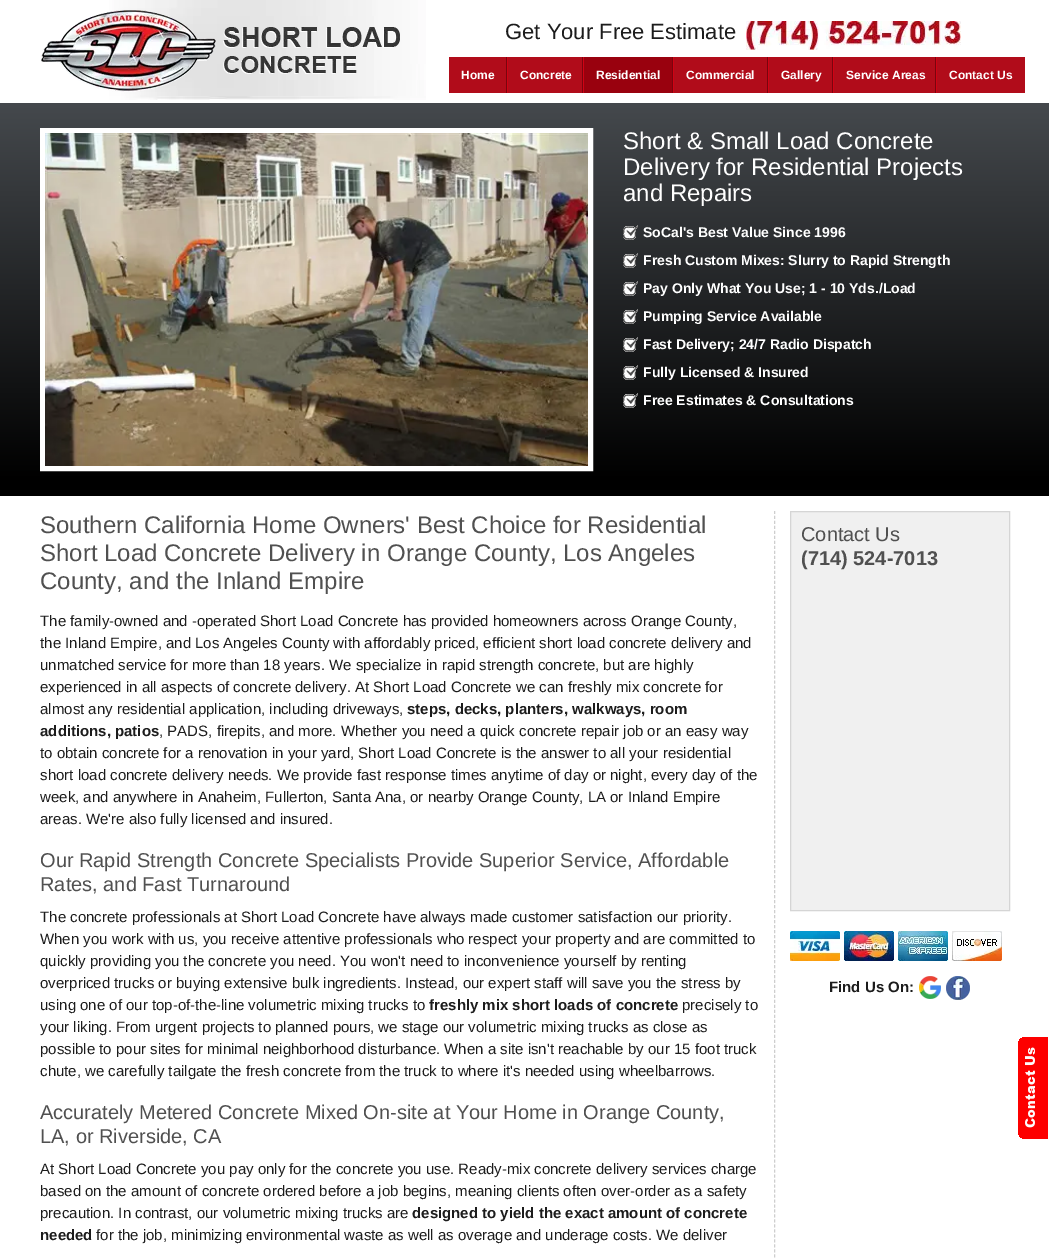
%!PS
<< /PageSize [1049 1258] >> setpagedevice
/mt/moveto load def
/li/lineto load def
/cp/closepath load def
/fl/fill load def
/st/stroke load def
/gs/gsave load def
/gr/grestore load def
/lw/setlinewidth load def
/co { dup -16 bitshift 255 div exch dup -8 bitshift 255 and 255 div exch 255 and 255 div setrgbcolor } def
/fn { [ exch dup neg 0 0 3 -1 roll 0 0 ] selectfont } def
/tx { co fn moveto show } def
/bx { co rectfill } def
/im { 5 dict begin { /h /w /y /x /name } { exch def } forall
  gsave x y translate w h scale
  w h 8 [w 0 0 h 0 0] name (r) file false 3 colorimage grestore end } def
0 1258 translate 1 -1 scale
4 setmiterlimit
0 0 1049 1258 16#FFFFFF bx
(media/1.raw) 109 0 317 100 im
(media/2.raw) 41 10 359 82 im
(media/3.raw) 746 21 215 29 im
449 57 57 36 16#B10C1A bx
506 57 1 36 16#7A040E bx
508 57 74 36 16#B10C1A bx
582 57 1 36 16#7A040E bx
507 57 1 36 16#D10214 bx
584 57 88 36 16#99010E bx
672 57 1 36 16#7A040E bx
583 57 1 36 16#D10214 bx
674 57 93 36 16#B10C1A bx
767 57 1 36 16#7A040E bx
673 57 1 36 16#D10214 bx
769 57 63 36 16#B10C1A bx
832 57 1 36 16#7A040E bx
768 57 1 36 16#D10214 bx
834 57 101 36 16#B10C1A bx
935 57 1 36 16#7A040E bx
833 57 1 36 16#D10214 bx
937 57 88 36 16#B10C1A bx
936 57 1 36 16#D10214 bx
gs 0 103 mt 1049 103 li 1049 481 li 0 481 li cp clip newpath
<< /ShadingType 2 /ColorSpace /DeviceRGB /Coords [525 103 525 481] /Extend [true true] /Function << /FunctionType 2 /Domain [0 1] /C0 [.271 .286 .302] /C1 [0 0 0] /N 1 >> >> shfill gr
16#FFFFFF co
5 lw
42.5 130.5 548 338 rectstroke
(media/4.raw) 45 133 543 333 im
(media/5.raw) 623 225 15 15 im
(media/6.raw) 623 253 15 15 im
(media/7.raw) 623 281 15 15 im
(media/8.raw) 623 309 15 15 im
(media/9.raw) 623 337 15 15 im
(media/10.raw) 623 365 15 15 im
(media/11.raw) 623 393 15 15 im
0 481 1049 15 16#000000 bx
16#CECECE co
1 lw
[3 1.99] 0 setdash
774.5 511 mt 774.5 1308 li st
16#F0F0F0 co
790.5 511.5 mt 1009.5 511.5 li 1009.5 910.5 li 790.5 910.5 li cp gs fl gr
16#D5D5D5 co
[] 0 setdash
st
(media/12.raw) 790 931 50 30 im
(media/13.raw) 844 931 50 30 im
(media/14.raw) 898 931 50 30 im
(media/15.raw) 952 931 50 30 im
(media/16.raw) 919 976 22 23 im
(media/17.raw) 946 976 24 24 im
(media/18.raw) 1018 1037 30 102 im
(Get Your Free Estimate) 505 39 /LiberationSans-Regular 22 16#1C1C1C tx
(Home) 461 79 /LiberationSans-Bold 12 16#FFFFFF tx
(Concrete) 520 79 /LiberationSans-Bold 12 16#FFFFFF tx
(Residential) 596 79 /LiberationSans-Bold 12 16#FFFFFF tx
(Commercial) 686 79 /LiberationSans-Bold 12 16#FFFFFF tx
(Gallery) 781 79 /LiberationSans-Bold 12 16#FFFFFF tx
(Service Areas) 846 79 /LiberationSans-Bold 12 16#FFFFFF tx
(Contact Us) 949 79 /LiberationSans-Bold 12 16#FFFFFF tx
(Short & Small Load Concrete) 623 149 /LiberationSans-Regular 24 16#FFFFFF tx
(Delivery for Residential Projects) 623 175 /LiberationSans-Regular 24 16#FFFFFF tx
(and Repairs) 623 201 /LiberationSans-Regular 24 16#FFFFFF tx
(SoCal's Best Value Since 1996) 643 237 /LiberationSans-Bold 14 16#FFFFFF tx
(Fresh Custom Mixes: Slurry to Rapid Strength) 643 265 /LiberationSans-Bold 14 16#FFFFFF tx
(Pay Only What You Use; 1 - 10 Yds./Load) 643 293 /LiberationSans-Bold 14 16#FFFFFF tx
(Pumping Service Available) 643 321 /LiberationSans-Bold 14 16#FFFFFF tx
(Fast Delivery; 24/7 Radio Dispatch) 643 349 /LiberationSans-Bold 14 16#FFFFFF tx
(Fully Licensed & Insured) 643 377 /LiberationSans-Bold 14 16#FFFFFF tx
(Free Estimates & Consultations) 643 405 /LiberationSans-Bold 14 16#FFFFFF tx
(Southern California Home Owners' Best Choice for Residential) 40 533 /LiberationSans-Regular 24 16#505050 tx
(Short Load Concrete Delivery in Orange County, Los Angeles) 40 561 /LiberationSans-Regular 24 16#505050 tx
(County, and the Inland Empire) 40 589 /LiberationSans-Regular 24 16#505050 tx
(The family-owned and -operated Short Load Concrete has provided homeowners across Orange County,) 40 626 /LiberationSans-Regular 15 16#1C1C1C tx
(the Inland Empire, and Los Angeles County with affordably priced, efficient short load concrete delivery and) 40 648 /LiberationSans-Regular 15 16#1C1C1C tx
(unmatched service for more than 18 years. We specialize in rapid strength concrete, but are highly) 40 670 /LiberationSans-Regular 15 16#1C1C1C tx
(experienced in all aspects of concrete delivery. At Short Load Concrete we can freshly mix concrete for) 40 692 /LiberationSans-Regular 15 16#1C1C1C tx
(almost any residential application, including driveways,) 40 714 /LiberationSans-Regular 15 16#1C1C1C tx
(steps, decks, planters, walkways, room) 407 714 /LiberationSans-Bold 15 16#1C1C1C tx
(additions, patios) 40 736 /LiberationSans-Bold 15 16#1C1C1C tx
(, PADS, firepits, and more. Whether you need a quick concrete repair job or an easy way) 159 736 /LiberationSans-Regular 15 16#1C1C1C tx
(to obtain concrete for a renovation in your yard, Short Load Concrete is the answer to all your residential) 40 758 /LiberationSans-Regular 15 16#1C1C1C tx
(short load concrete delivery needs. We provide fast response times anytime of day or night, every day of the) 40 780 /LiberationSans-Regular 15 16#1C1C1C tx
(week, and anywhere in Anaheim, Fullerton, Santa Ana, or nearby Orange County, LA or Inland Empire) 40 802 /LiberationSans-Regular 15 16#1C1C1C tx
(areas. We're also fully licensed and insured.) 40 824 /LiberationSans-Regular 15 16#1C1C1C tx
(Our Rapid Strength Concrete Specialists Provide Superior Service, Affordable) 40 867 /LiberationSans-Regular 20 16#505050 tx
(Rates, and Fast Turnaround) 40 891 /LiberationSans-Regular 20 16#505050 tx
(The concrete professionals at Short Load Concrete have always made customer satisfaction our priority.) 40 922 /LiberationSans-Regular 15 16#1C1C1C tx
(When you work with us, you receive attentive professionals who respect your property and are committed to) 40 944 /LiberationSans-Regular 15 16#1C1C1C tx
(quickly providing you the concrete you need. You won't need to inconvenience yourself by renting) 40 966 /LiberationSans-Regular 15 16#1C1C1C tx
(overpriced trucks or buying extensive bulk ingredients. Instead, our expert staff will save you the stress by) 40 988 /LiberationSans-Regular 15 16#1C1C1C tx
(using one of our top-of-the-line volumetric mixing trucks to) 40 1010 /LiberationSans-Regular 15 16#1C1C1C tx
(freshly mix short loads of concrete) 429 1010 /LiberationSans-Bold 15 16#1C1C1C tx
(precisely to) 682 1010 /LiberationSans-Regular 15 16#1C1C1C tx
(your liking. From urgent projects to planned pours, we stage our volumetric mixing trucks as close as) 40 1032 /LiberationSans-Regular 15 16#1C1C1C tx
(possible to pour sites for minimal neighborhood disturbance. When a site isn't reachable by our 15 foot truck) 40 1054 /LiberationSans-Regular 15 16#1C1C1C tx
(chute, we carefully tailgate the fresh concrete from the truck to where it's needed using wheelbarrows.) 40 1076 /LiberationSans-Regular 15 16#1C1C1C tx
(Accurately Metered Concrete Mixed On-site at Your Home in Orange County,) 40 1119 /LiberationSans-Regular 20 16#505050 tx
(LA, or Riverside, CA) 40 1143 /LiberationSans-Regular 20 16#505050 tx
(At Short Load Concrete you pay only for the concrete you use. Ready-mix concrete delivery services charge) 40 1174 /LiberationSans-Regular 15 16#1C1C1C tx
(based on the amount of concrete ordered before a job begins, meaning clients often over-order as a safety) 40 1196 /LiberationSans-Regular 15 16#1C1C1C tx
(precaution. In contrast, our volumetric mixing trucks are) 40 1218 /LiberationSans-Regular 15 16#1C1C1C tx
(designed to yield the exact amount of concrete) 412 1218 /LiberationSans-Bold 15 16#1C1C1C tx
(needed) 40 1240 /LiberationSans-Bold 15 16#1C1C1C tx
(for the job, minimizing environmental waste as well as overage and underage costs. We deliver) 96 1240 /LiberationSans-Regular 15 16#1C1C1C tx
(Contact Us) 801 541 /LiberationSans-Regular 20 16#505050 tx
(\(714\) 524-7013) 801 565 /LiberationSans-Bold 20 16#505050 tx
(Find Us On:) 829 992 /LiberationSans-Bold 15 16#1C1C1C tx
showpage
